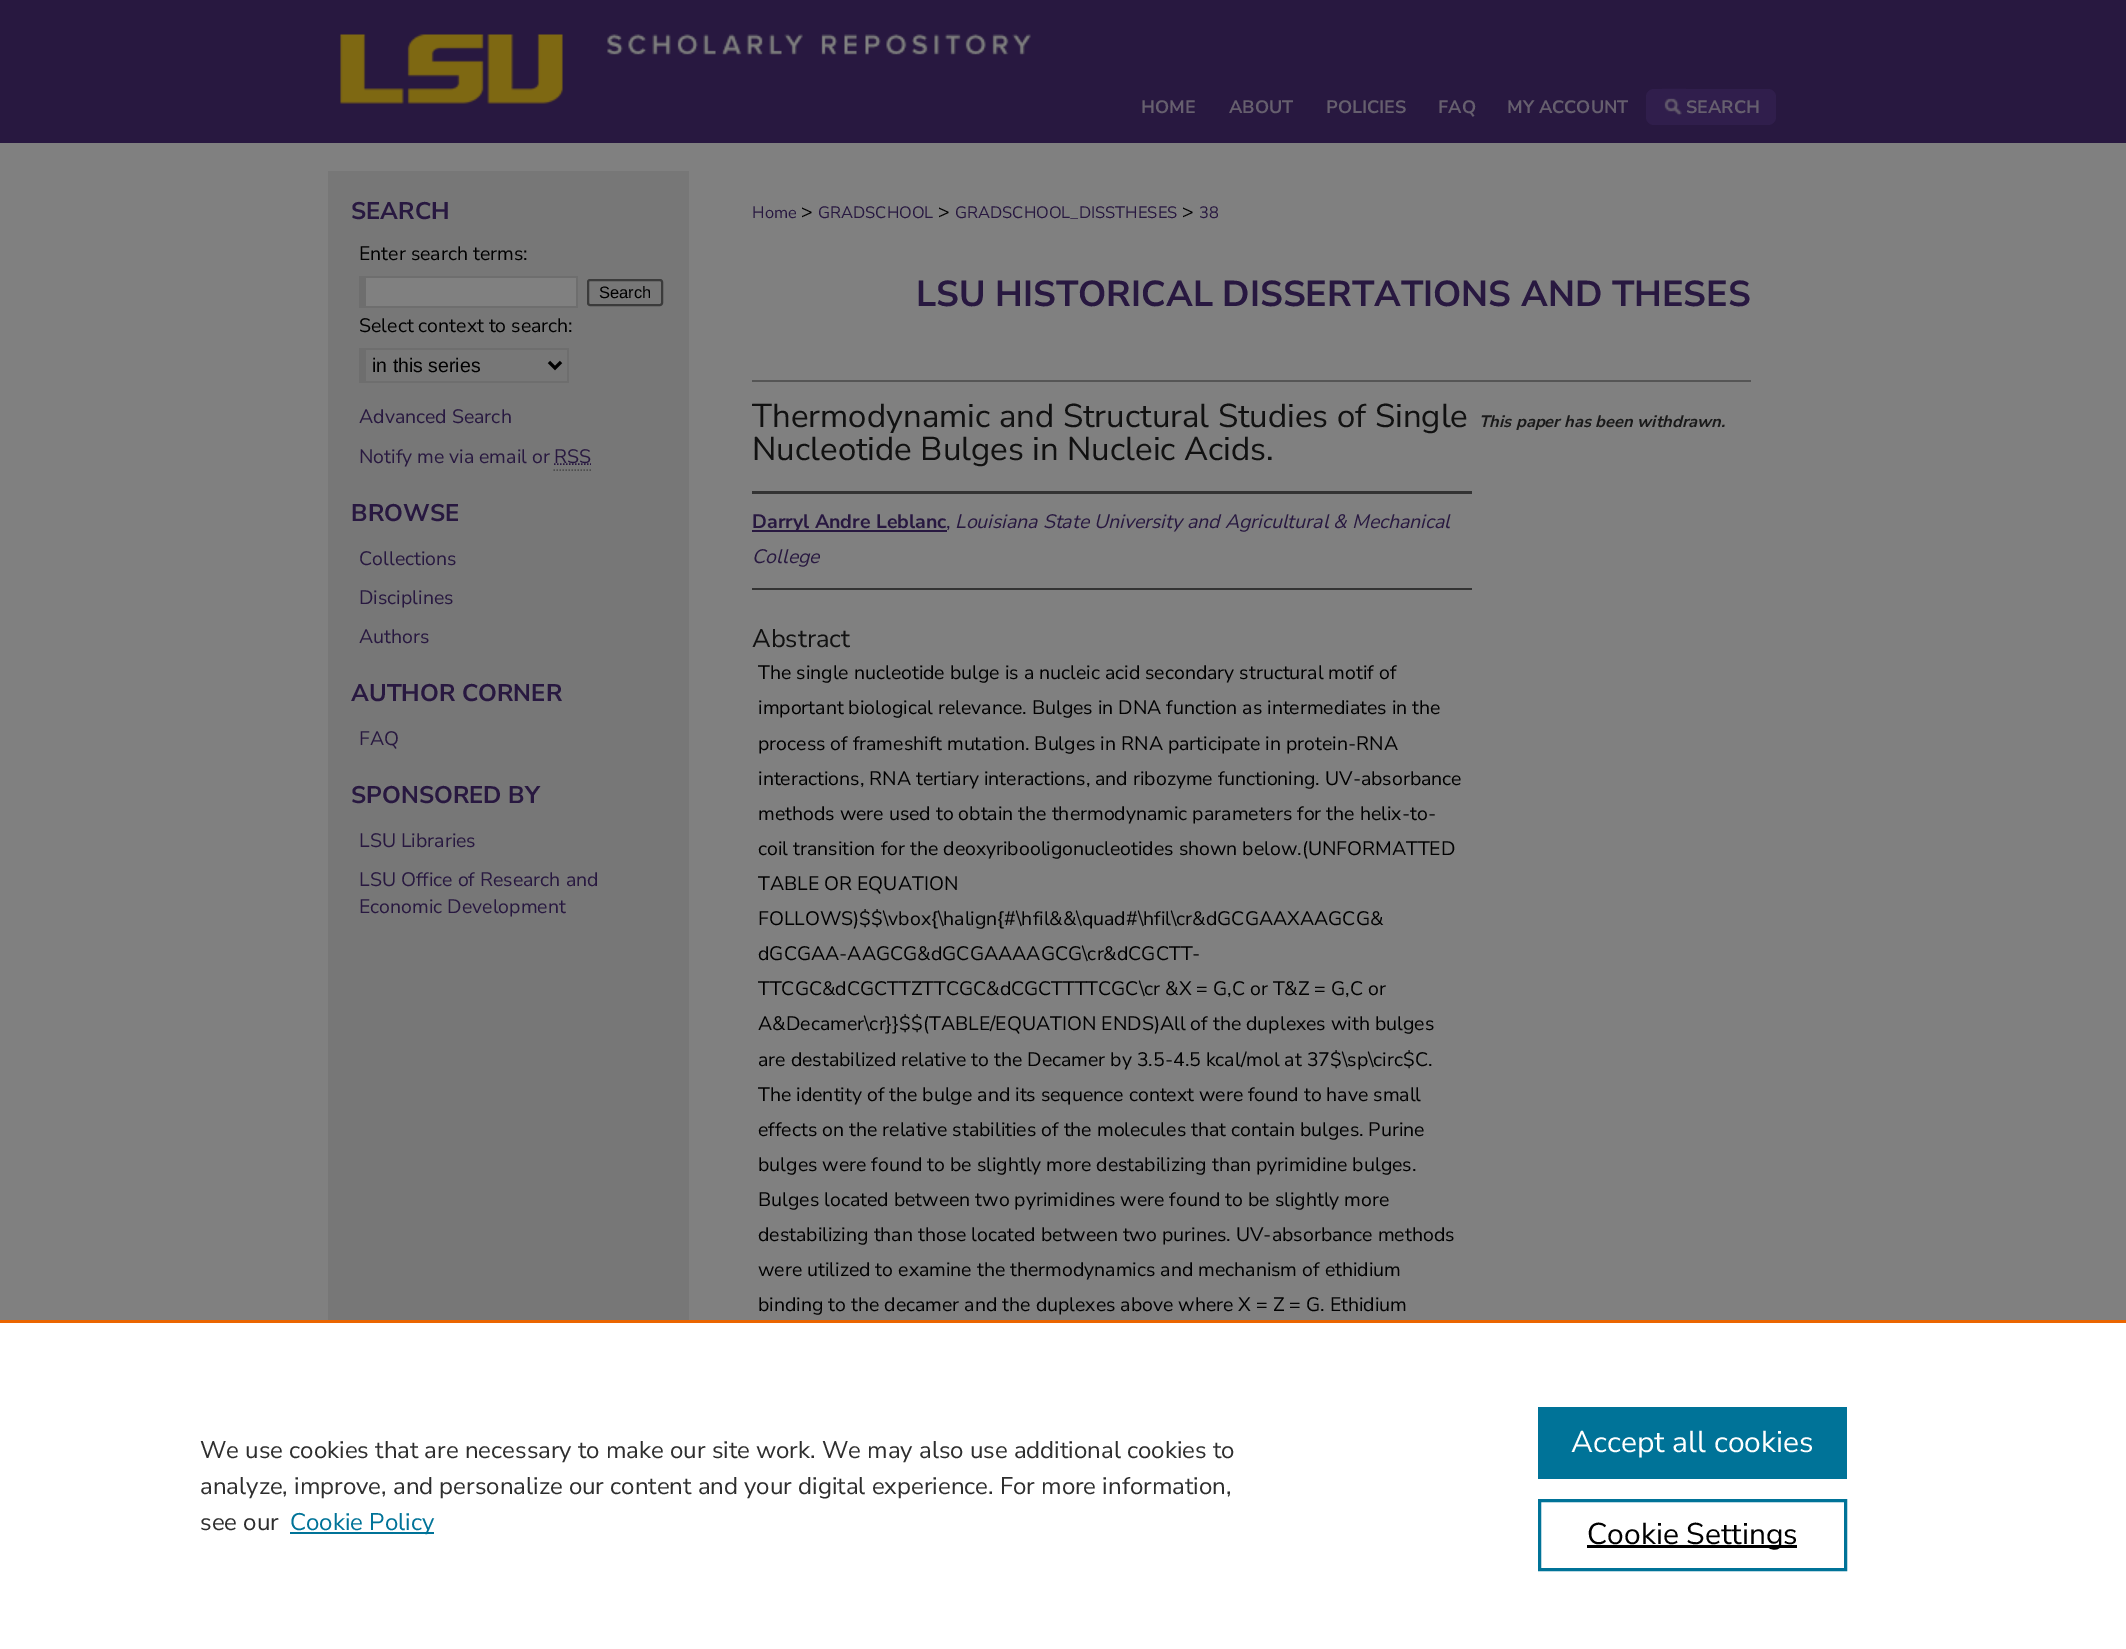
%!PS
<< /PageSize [2126 1649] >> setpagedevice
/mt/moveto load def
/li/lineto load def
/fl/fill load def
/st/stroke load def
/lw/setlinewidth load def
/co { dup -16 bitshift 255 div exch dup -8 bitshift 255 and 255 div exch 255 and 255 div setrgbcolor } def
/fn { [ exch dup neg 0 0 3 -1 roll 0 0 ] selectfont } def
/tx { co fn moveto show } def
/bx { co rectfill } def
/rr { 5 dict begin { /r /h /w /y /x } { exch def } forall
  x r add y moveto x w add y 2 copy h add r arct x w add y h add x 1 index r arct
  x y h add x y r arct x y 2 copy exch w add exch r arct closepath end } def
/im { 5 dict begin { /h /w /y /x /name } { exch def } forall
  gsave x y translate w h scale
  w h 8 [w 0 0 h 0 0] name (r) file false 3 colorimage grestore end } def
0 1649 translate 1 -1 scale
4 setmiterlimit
0 0 2126 1649 16#808080 bx
0 0 2126 143 16#281840 bx
(media/1.raw) 340 34 691 70 im
16#301E4C co
1646 89 130 36 8 rr fl
(media/2.raw) 1662 88 24 28 im
328 171 361 1149 16#777777 bx
366 278 210 28 16#808080 bx
359 276 219 2 16#6E6E6E bx
576 276 2 32 16#6E6E6E bx
359 306 219 2 16#6E6E6E bx
359 276 7 32 16#6E6E6E bx
16#3B3B3B co
2 lw
588 280 74 25 2 rr st
359 348 210 2 16#6E6E6E bx
567 348 2 35 16#6E6E6E bx
359 381 210 2 16#6E6E6E bx
359 348 7 35 16#6E6E6E bx
16#000000 co
3 lw
549 362 mt 555 368 li 561 362 li st
16#4D4D4D co
1.5 lw
[1.5 1.5] 0 setdash
553.5 470 mt 591 470 li st
16#281840 co
554 464 mt 591 464 li st
752 380 999 2 16#555555 bx
752 491 720 3 16#333333 bx
752 588 720 2 16#333333 bx
752 530 195 2 16#281840 bx
0 1323 2126 326 16#FFFFFF bx
0 1320 2126 3 16#EB6500 bx
290 1532 144 2 16#007398 bx
1538 1407 309 72 16#007398 bx
3 lw
[] 0 setdash
1539.5 1500.5 306 69 rectstroke
1587 1545 210 3 16#000000 bx
(HOME) 1141 113 /NunitoSans-Bold 18 16#665F6E tx
(ABOUT) 1229 113 /NunitoSans-Bold 18 16#665F6E tx
(POLICIES) 1326 113 /NunitoSans-Bold 18 16#665F6E tx
(FAQ) 1438 113 /NunitoSans-Bold 18 16#665F6E tx
(MY ACCOUNT) 1507 113 /NunitoSans-Bold 18 16#665F6E tx
(SEARCH) 1686 113 /NunitoSans-Bold 18 16#665F6E tx
(SEARCH) 351 219 /NunitoSans-Bold 24 16#281840 tx
(Enter search terms:) 359 260 /NunitoSans-Regular 19.5 16#000000 tx
(Search) 599 298 /LiberationSans-Regular 16.5 16#000000 tx
(Select context to search:) 359 332 /NunitoSans-Regular 19.5 16#000000 tx
(in this series) 372 372 /LiberationSans-Regular 19.5 16#000000 tx
(Advanced Search) 359 423 /NunitoSans-Regular 19.5 16#281840 tx
(Notify me via email or) 359 463 /NunitoSans-Regular 19.5 16#281840 tx
(RSS) 554 463 /NunitoSans-Regular 19.5 16#281840 tx
(BROWSE) 351 521 /NunitoSans-Bold 24 16#281840 tx
(Collections) 359 565 /NunitoSans-Regular 19.5 16#281840 tx
(Disciplines) 359 604 /NunitoSans-Regular 19.5 16#281840 tx
(Authors) 359 643 /NunitoSans-Regular 19.5 16#281840 tx
(AUTHOR CORNER) 351 701 /NunitoSans-Bold 24 16#281840 tx
(FAQ) 359 745 /NunitoSans-Regular 19.5 16#281840 tx
(SPONSORED BY) 351 803 /NunitoSans-Bold 24 16#281840 tx
(LSU Libraries) 359 847 /NunitoSans-Regular 19.5 16#281840 tx
(LSU Office of Research and) 359 886 /NunitoSans-Regular 19.5 16#281840 tx
(Economic Development) 359 913 /NunitoSans-Regular 19.5 16#281840 tx
(Home) 752 218 /NunitoSans-Regular 16.5 16#281840 tx
(>) 801 218 /NunitoSans-Regular 19.5 16#000000 tx
(GRADSCHOOL) 818 218 /NunitoSans-Regular 16.5 16#281840 tx
(>) 938 218 /NunitoSans-Regular 19.5 16#000000 tx
(GRADSCHOOL_DISSTHESES) 955 218 /NunitoSans-Regular 16.5 16#281840 tx
(>) 1182 218 /NunitoSans-Regular 19.5 16#000000 tx
(38) 1199 218 /NunitoSans-Regular 16.5 16#281840 tx
(LSU HISTORICAL DISSERTATIONS AND THESES) 916 306 /NunitoSans-Bold 36 16#281840 tx
(Thermodynamic and Structural Studies of Single) 752 427 /NunitoSans-Regular 33 16#111111 tx
(Nucleotide Bulges in Nucleic Acids.) 752 460 /NunitoSans-Regular 33 16#111111 tx
(Darryl Andre Leblanc) 752 528 /NunitoSans-Bold 19.5 16#281840 tx
(,) 946 528 /NunitoSans-Regular 19.5 16#281840 tx
(Louisiana State University and Agricultural & Mechanical) 955 528 /NunitoSans-Italic 19.5 16#281840 tx
(College) 752 563 /NunitoSans-Italic 19.5 16#281840 tx
(Abstract) 752 647 /NunitoSans-Regular 25.5 16#111111 tx
(The single nucleotide bulge is a nucleic acid secondary structural motif of) 758 679 /NunitoSans-Regular 19.5 16#000000 tx
(important biological relevance. Bulges in DNA function as intermediates in the) 758 714 /NunitoSans-Regular 19.5 16#000000 tx
(process of frameshift mutation. Bulges in RNA participate in protein-RNA) 758 750 /NunitoSans-Regular 19.5 16#000000 tx
(interactions, RNA tertiary interactions, and ribozyme functioning. UV-absorbance) 758 785 /NunitoSans-Regular 19.5 16#000000 tx
(methods were used to obtain the thermodynamic parameters for the helix-to-) 758 820 /NunitoSans-Regular 19.5 16#000000 tx
(coil transition for the deoxyribooligonucleotides shown below.\(UNFORMATTED) 758 855 /NunitoSans-Regular 19.5 16#000000 tx
(TABLE OR EQUATION) 758 890 /NunitoSans-Regular 19.5 16#000000 tx
(FOLLOWS\)$$\\vbox{\\halign{#\\hfil&&\\quad#\\hfil\\cr&dGCGAAXAAGCG&) 758 925 /NunitoSans-Regular 19.5 16#000000 tx
(dGCGAA-AAGCG&dGCGAAAAGCG\\cr&dCGCTT-) 758 960 /NunitoSans-Regular 19.5 16#000000 tx
(TTCGC&dCGCTTZTTCGC&dCGCTTTTCGC\\cr &X = G,C or T&Z = G,C or) 758 995 /NunitoSans-Regular 19.5 16#000000 tx
(A&Decamer\\cr}}$$\(TABLE/EQUATION ENDS\)All of the duplexes with bulges) 758 1030 /NunitoSans-Regular 19.5 16#000000 tx
(are destabilized relative to the Decamer by 3.5-4.5 kcal/mol at 37$\\sp\\circ$C.) 758 1066 /NunitoSans-Regular 19.5 16#000000 tx
(The identity of the bulge and its sequence context were found to have small) 758 1101 /NunitoSans-Regular 19.5 16#000000 tx
(effects on the relative stabilities of the molecules that contain bulges. Purine) 758 1136 /NunitoSans-Regular 19.5 16#000000 tx
(bulges were found to be slightly more destabilizing than pyrimidine bulges.) 758 1171 /NunitoSans-Regular 19.5 16#000000 tx
(Bulges located between two pyrimidines were found to be slightly more) 758 1206 /NunitoSans-Regular 19.5 16#000000 tx
(destabilizing than those located between two purines. UV-absorbance methods) 758 1241 /NunitoSans-Regular 19.5 16#000000 tx
(were utilized to examine the thermodynamics and mechanism of ethidium) 758 1276 /NunitoSans-Regular 19.5 16#000000 tx
(binding to the decamer and the duplexes above where X = Z = G. Ethidium) 758 1311 /NunitoSans-Regular 19.5 16#000000 tx
(This paper has been withdrawn.) 1479 427 /NunitoSans-BoldItalic 16.5 16#1A1A1A tx
(We use cookies that are necessary to make our site work. We may also use additional cookies to) 200 1458 /NunitoSans-Regular 24 16#2E2E2E tx
(analyze, improve, and personalize our content and your digital experience. For more information,) 200 1494 /NunitoSans-Regular 24 16#2E2E2E tx
(see our) 200 1530 /NunitoSans-Regular 24 16#2E2E2E tx
(Cookie Policy) 290 1530 /NunitoSans-Regular 24 16#007398 tx
(Accept all cookies) 1571 1452 /NunitoSans-Regular 30 16#FFFFFF tx
(Cookie Settings) 1587 1544 /NunitoSans-Regular 30 16#000000 tx
showpage
